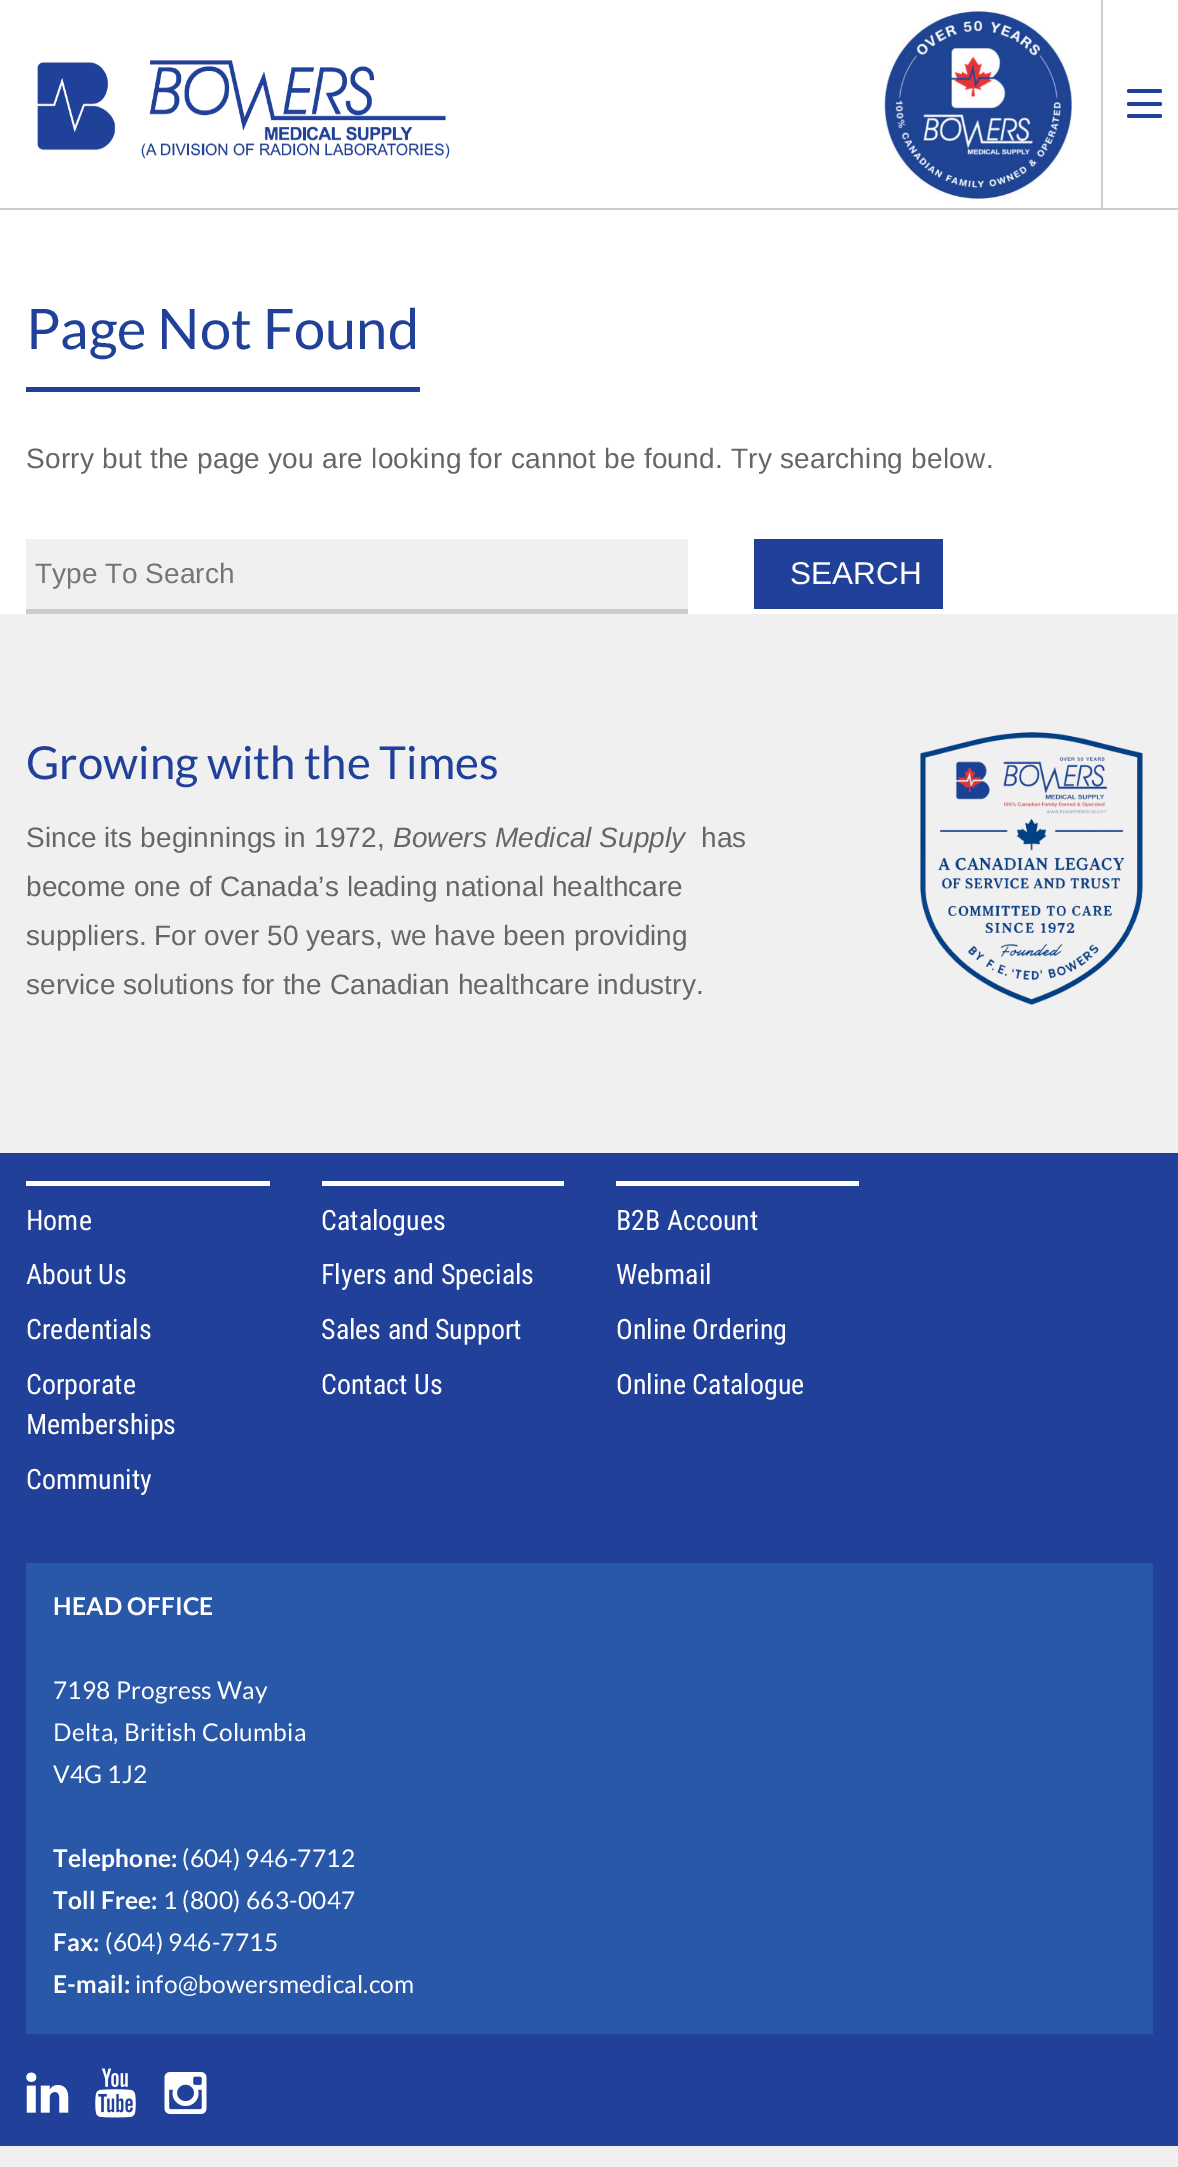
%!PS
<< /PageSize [1178 2167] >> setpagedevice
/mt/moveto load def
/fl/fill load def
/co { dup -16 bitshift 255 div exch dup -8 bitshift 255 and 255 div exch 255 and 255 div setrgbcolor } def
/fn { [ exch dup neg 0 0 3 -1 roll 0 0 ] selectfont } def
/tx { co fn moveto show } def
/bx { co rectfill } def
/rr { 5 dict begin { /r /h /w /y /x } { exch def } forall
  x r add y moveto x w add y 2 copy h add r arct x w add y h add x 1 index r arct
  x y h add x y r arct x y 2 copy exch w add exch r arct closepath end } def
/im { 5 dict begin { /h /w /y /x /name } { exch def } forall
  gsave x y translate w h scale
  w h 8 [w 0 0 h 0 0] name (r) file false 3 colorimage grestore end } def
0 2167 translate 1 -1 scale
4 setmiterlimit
0 0 1178 2167 16#FFFFFF bx
0 208 1178 2 16#CCCCCC bx
(media/1.raw) 37 60 413 99 im
(media/2.raw) 882 9 190 190 im
1101 0 2 210 16#CCCCCC bx
16#204099 co
1127 89 35 4 2 rr fl
1127 102 35 4 2 rr fl
1127 114 35 4 2 rr fl
26 387 394 5 16#204099 bx
26 539 662 70 16#F0F0F0 bx
26 609 662 5 16#CCCCCC bx
754 539 189 70 16#204099 bx
0 614 1178 1553 16#F0F0F0 bx
(media/3.raw) 920 732 223 273 im
0 1153 1178 993 16#204099 bx
26 1181 244 5 16#FFFFFF bx
322 1181 242 5 16#FFFFFF bx
616 1181 243 5 16#FFFFFF bx
26 1563 1127 471 16#2958A9 bx
(media/4.raw) 26 2072 43 41 im
(media/5.raw) 95 2068 41 50 im
(media/6.raw) 164 2072 43 42 im
(Page Not Found) 26 349 /Lato-Regular 56 16#204099 tx
/LiberationSans-Regular 28 fn
16#666666 co
26 468 mt .22 0 (Sorry but the page you are looking for cannot be found. Try searching below.) ashow
(Type To Search) 35 583 /LiberationSans-Regular 28 16#757575 tx
(SEARCH) 790 584 /LiberationSans-Regular 31.5 16#FFFFFF tx
(Growing with the Times) 26 779 /Lato-Regular 45.5 16#204099 tx
/LiberationSans-Regular 28 fn
16#666666 co
26 847 mt .07 0 (Since its beginnings in 1972,) ashow
/LiberationSans-Italic 28 fn
393 847 mt .07 0 (Bowers Medical Supply) ashow
/LiberationSans-Regular 28 fn
701 847 mt .07 0 (has) ashow
26 896 mt .07 0 (become one of Canada’s leading national healthcare) ashow
26 945 mt .07 0 (suppliers. For over 50 years, we have been providing) ashow
26 994 mt .07 0 (service solutions for the Canadian healthcare industry.) ashow
(Home) 26 1230 /RobotoCondensed-Regular 28 16#FFFFFF tx
(About Us) 26 1284 /RobotoCondensed-Regular 28 16#FFFFFF tx
(Credentials) 26 1339 /RobotoCondensed-Regular 28 16#FFFFFF tx
(Corporate) 26 1394 /RobotoCondensed-Regular 28 16#FFFFFF tx
(Memberships) 26 1434 /RobotoCondensed-Regular 28 16#FFFFFF tx
(Community) 26 1489 /RobotoCondensed-Regular 28 16#FFFFFF tx
(Catalogues) 321 1230 /RobotoCondensed-Regular 28 16#FFFFFF tx
(Flyers and Specials) 321 1284 /RobotoCondensed-Regular 28 16#FFFFFF tx
(Sales and Support) 321 1339 /RobotoCondensed-Regular 28 16#FFFFFF tx
(Contact Us) 321 1394 /RobotoCondensed-Regular 28 16#FFFFFF tx
(B2B Account) 616 1230 /RobotoCondensed-Regular 28 16#FFFFFF tx
(Webmail) 616 1284 /RobotoCondensed-Regular 28 16#FFFFFF tx
(Online Ordering) 616 1339 /RobotoCondensed-Regular 28 16#FFFFFF tx
(Online Catalogue) 616 1394 /RobotoCondensed-Regular 28 16#FFFFFF tx
/Lato-Bold 24.5 fn
53 1615 mt .22 0 (HEAD OFFICE) ashow
/Lato-Regular 24.5 fn
53 1699 mt .22 0 (7198 Progress Way) ashow
53 1741 mt .22 0 (Delta, British Columbia) ashow
53 1783 mt .22 0 (V4G 1J2) ashow
/Lato-Bold 24.5 fn
53 1867 mt .22 0 (Telephone:) ashow
/Lato-Regular 24.5 fn
182 1867 mt .22 0 (\(604\) 946-7712) ashow
/Lato-Bold 24.5 fn
53 1909 mt .22 0 (Toll Free:) ashow
/Lato-Regular 24.5 fn
163 1909 mt .22 0 (1 \(800\) 663-0047) ashow
/Lato-Bold 24.5 fn
53 1951 mt .22 0 (Fax:) ashow
/Lato-Regular 24.5 fn
105 1951 mt .22 0 (\(604\) 946-7715) ashow
/Lato-Bold 24.5 fn
53 1993 mt .22 0 (E-mail:) ashow
/Lato-Regular 24.5 fn
135 1993 mt .22 0 (info@bowersmedical.com) ashow
showpage
